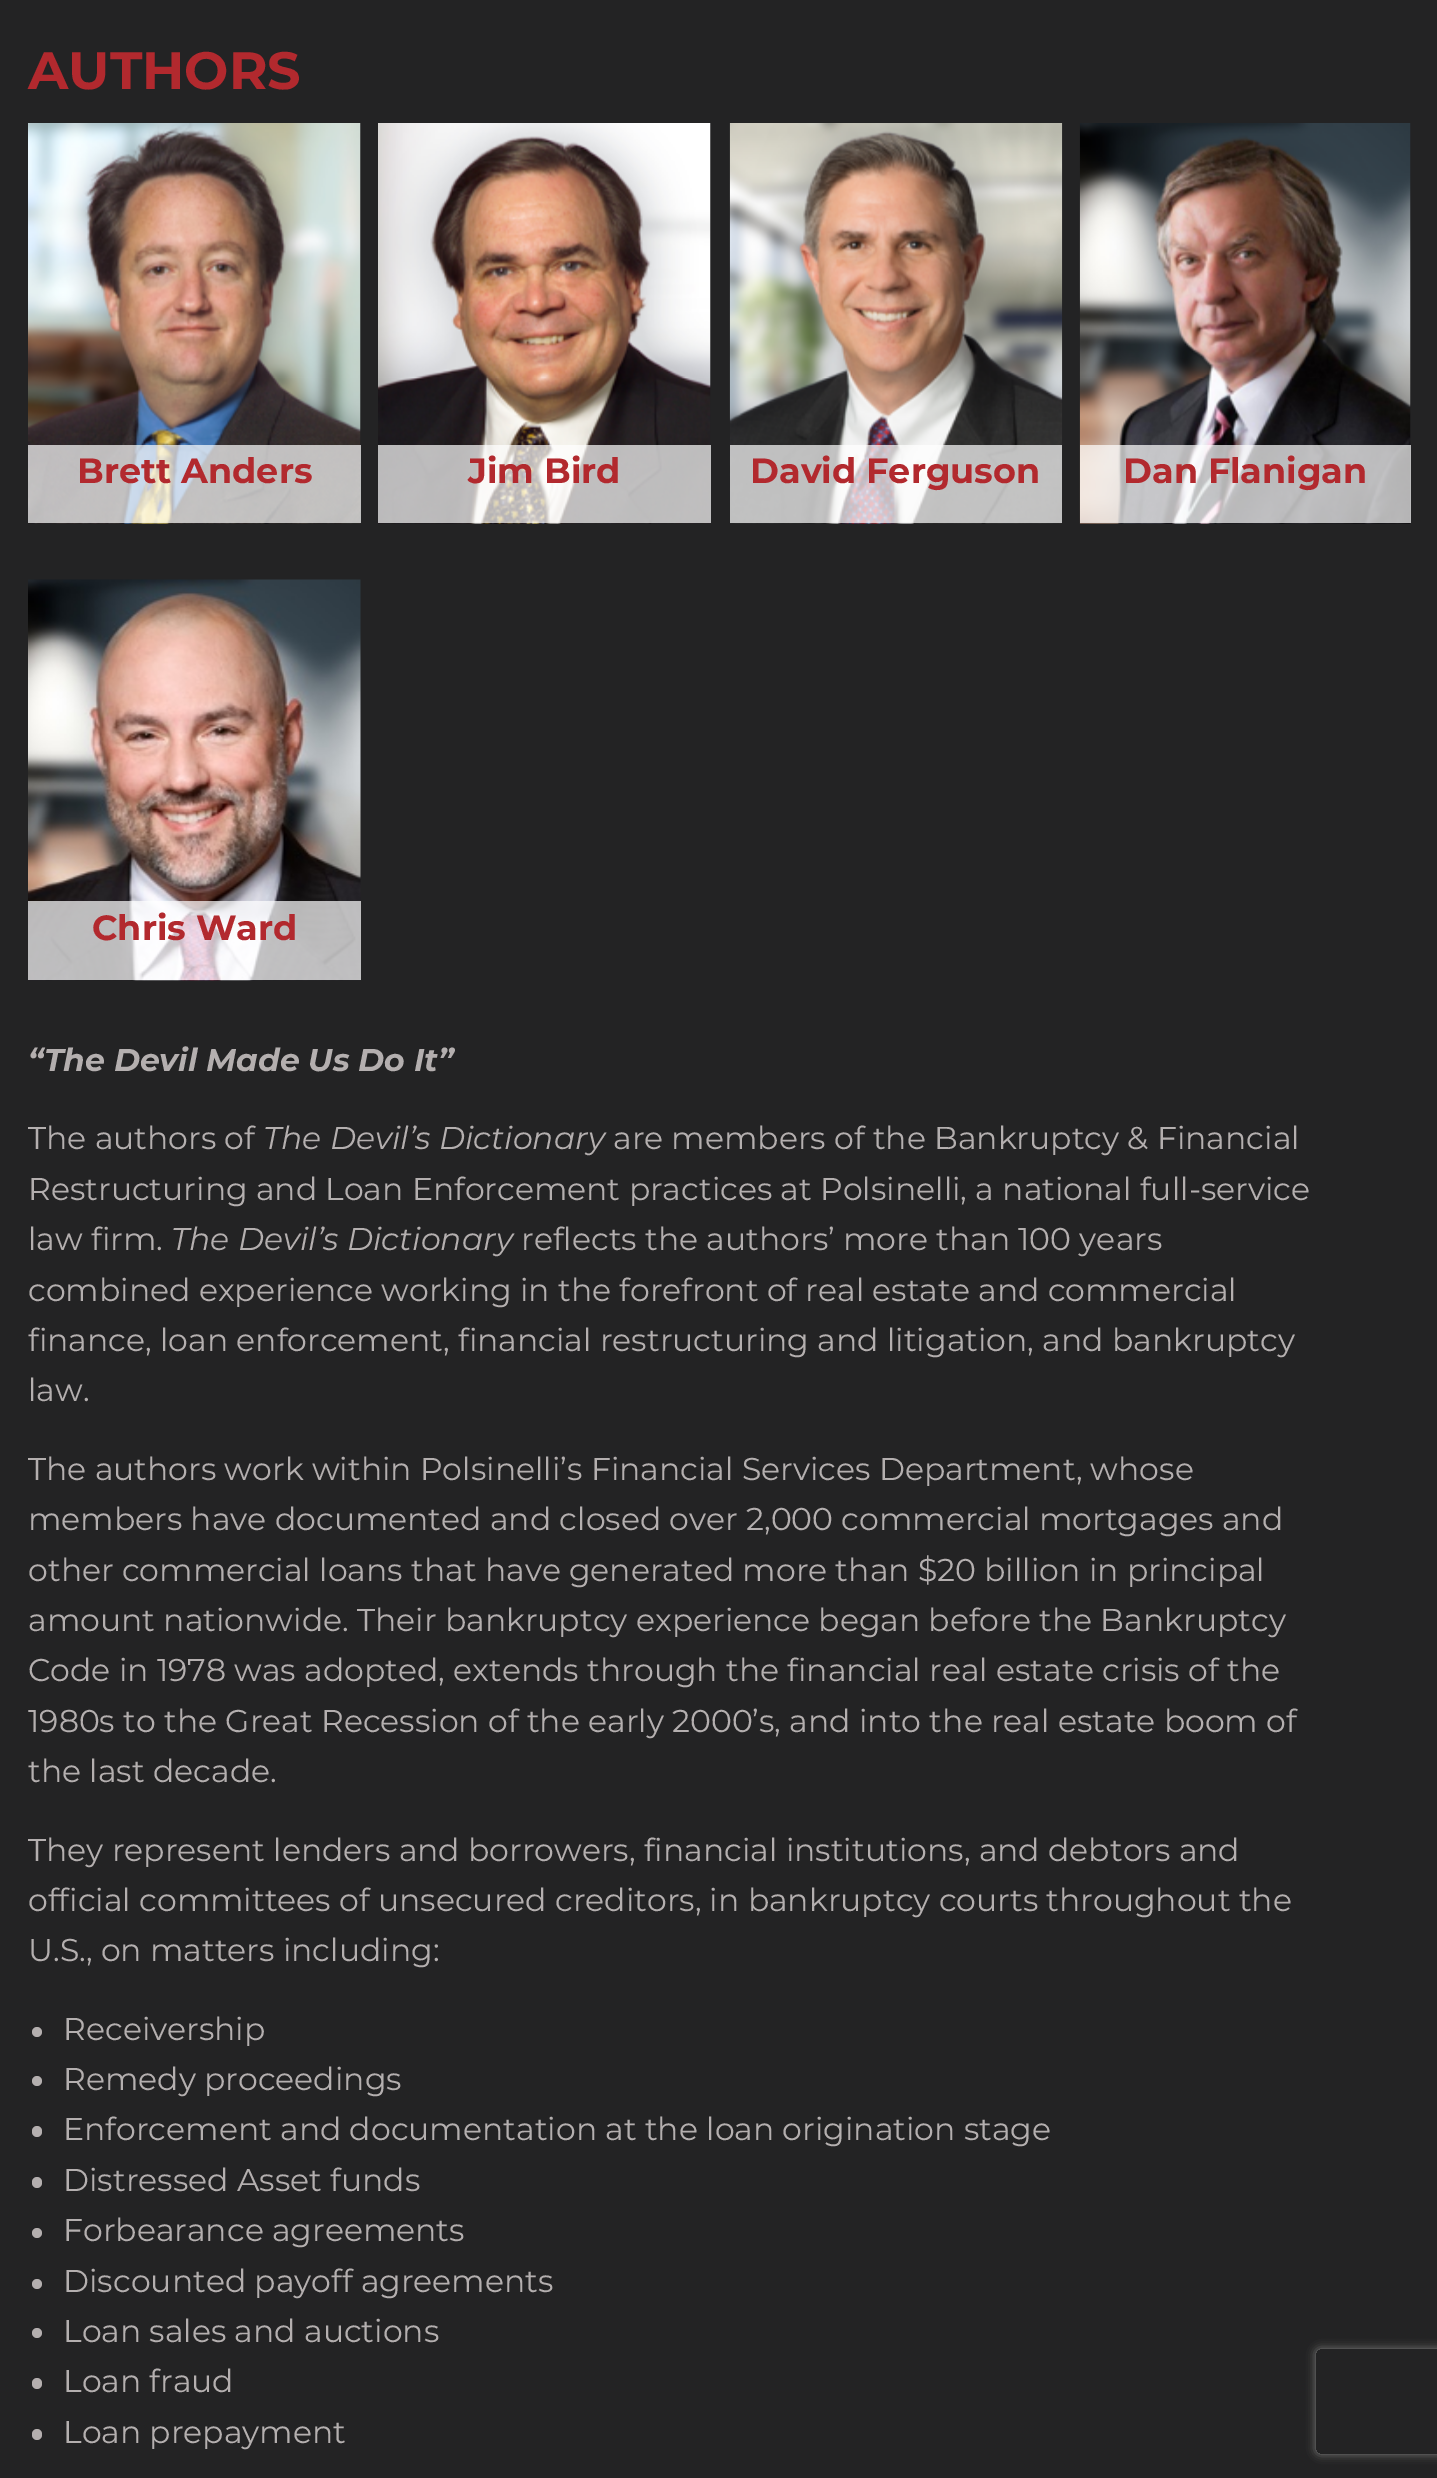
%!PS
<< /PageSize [1437 2478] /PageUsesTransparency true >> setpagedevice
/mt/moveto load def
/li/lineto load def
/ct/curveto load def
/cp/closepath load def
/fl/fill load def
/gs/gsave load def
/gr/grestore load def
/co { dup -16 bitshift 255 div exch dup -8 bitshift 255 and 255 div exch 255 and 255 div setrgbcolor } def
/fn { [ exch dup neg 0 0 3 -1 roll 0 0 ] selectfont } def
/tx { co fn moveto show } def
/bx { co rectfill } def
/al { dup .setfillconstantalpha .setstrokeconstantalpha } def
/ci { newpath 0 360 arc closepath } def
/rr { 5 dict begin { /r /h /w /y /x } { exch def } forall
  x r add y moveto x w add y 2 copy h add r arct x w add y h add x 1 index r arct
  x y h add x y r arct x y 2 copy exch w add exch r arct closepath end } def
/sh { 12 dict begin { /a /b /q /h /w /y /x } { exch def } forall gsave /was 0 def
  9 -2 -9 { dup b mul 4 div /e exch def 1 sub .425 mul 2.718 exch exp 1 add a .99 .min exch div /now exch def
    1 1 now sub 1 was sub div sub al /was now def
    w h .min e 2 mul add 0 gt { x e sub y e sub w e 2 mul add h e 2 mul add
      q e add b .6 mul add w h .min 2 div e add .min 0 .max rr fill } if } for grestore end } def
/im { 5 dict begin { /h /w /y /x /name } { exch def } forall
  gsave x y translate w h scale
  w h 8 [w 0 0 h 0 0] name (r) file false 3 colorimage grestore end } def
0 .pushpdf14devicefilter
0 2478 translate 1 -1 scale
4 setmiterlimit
0 0 1437 2478 16#232324 bx
(media/1.raw) 28 123 333 401 im
0.7 al
28 445 333 78 16#FFFFFF bx
1 al
(media/2.raw) 378 123 333 401 im
0.7 al
378 445 333 78 16#FFFFFF bx
1 al
(media/3.raw) 729 123 334 401 im
0.7 al
730 445 332 78 16#FFFFFF bx
1 al
(media/4.raw) 1079 123 332 401 im
0.7 al
1080 445 331 78 16#FFFFFF bx
1 al
(media/5.raw) 28 579 333 402 im
0.7 al
28 901 333 79 16#FFFFFF bx
1 al
16#B4AFAF co
37 2032 5 ci fl
37 2081 5 ci fl
32 2126 10 11 5 rr fl
32 2177 10 11 5 rr fl
37 2233 5 ci fl
37 2284 5 ci fl
37 2333 5 ci fl
32 2378 10 11 5 rr fl
32 2429 10 11 5 rr fl
gs
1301 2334 mt 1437 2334 li 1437 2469 li 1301 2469 li cp 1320 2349 mt 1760 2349 li 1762 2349 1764 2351 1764 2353 ct 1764 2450 li 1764 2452 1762 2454 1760 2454 ct 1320 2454 li 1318 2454 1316 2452 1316 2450 ct 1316 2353 li 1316 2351 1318 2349 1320 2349 ct cp eoclip newpath
16#808080 co
1316 2349 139 105 4 4.5 1 sh
gr
(AUTHORS) 28 89 /Montserrat-Bold 52.5 16#B2292E tx
(Brett Anders) 77 483 /Montserrat-Bold 35 16#B2292E tx
(Jim Bird) 468 483 /Montserrat-Bold 35 16#B2292E tx
(David Ferguson) 750 483 /Montserrat-Bold 35 16#B2292E tx
(Dan Flanigan) 1123 483 /Montserrat-Bold 35 16#B2292E tx
(Chris Ward) 92 940 /Montserrat-Bold 35 16#B2292E tx
(“The Devil Made Us Do It”) 28 1071 /Montserrat-BoldItalic 31.5 16#B4AFAF tx
(The authors of) 28 1149 /Montserrat-Regular 31.5 16#B4AFAF tx
(The Devil’s Dictionary) 263 1149 /Montserrat-Italic 31.5 16#B4AFAF tx
(are members of the Bankruptcy & Financial) 613 1149 /Montserrat-Regular 31.5 16#B4AFAF tx
(Restructuring and Loan Enforcement practices at Polsinelli, a national full-service) 28 1200 /Montserrat-Regular 31.5 16#B4AFAF tx
(law firm.) 28 1250 /Montserrat-Regular 31.5 16#B4AFAF tx
(The Devil’s Dictionary) 171 1250 /Montserrat-Italic 31.5 16#B4AFAF tx
(reflects the authors’ more than 100 years) 521 1250 /Montserrat-Regular 31.5 16#B4AFAF tx
(combined experience working in the forefront of real estate and commercial) 28 1301 /Montserrat-Regular 31.5 16#B4AFAF tx
(finance, loan enforcement, financial restructuring and litigation, and bankruptcy) 28 1351 /Montserrat-Regular 31.5 16#B4AFAF tx
(law.) 28 1401 /Montserrat-Regular 31.5 16#B4AFAF tx
(The authors work within Polsinelli’s Financial Services Department, whose) 28 1480 /Montserrat-Regular 31.5 16#B4AFAF tx
(members have documented and closed over 2,000 commercial mortgages and) 28 1530 /Montserrat-Regular 31.5 16#B4AFAF tx
(other commercial loans that have generated more than $20 billion in principal) 28 1581 /Montserrat-Regular 31.5 16#B4AFAF tx
(amount nationwide. Their bankruptcy experience began before the Bankruptcy) 28 1631 /Montserrat-Regular 31.5 16#B4AFAF tx
(Code in 1978 was adopted, extends through the financial real estate crisis of the) 28 1681 /Montserrat-Regular 31.5 16#B4AFAF tx
(1980s to the Great Recession of the early 2000’s, and into the real estate boom of) 28 1732 /Montserrat-Regular 31.5 16#B4AFAF tx
(the last decade.) 28 1782 /Montserrat-Regular 31.5 16#B4AFAF tx
(They represent lenders and borrowers, financial institutions, and debtors and) 28 1861 /Montserrat-Regular 31.5 16#B4AFAF tx
(official committees of unsecured creditors, in bankruptcy courts throughout the) 28 1911 /Montserrat-Regular 31.5 16#B4AFAF tx
(U.S., on matters including:) 28 1961 /Montserrat-Regular 31.5 16#B4AFAF tx
(Receivership) 63 2040 /Montserrat-Regular 31.5 16#B4AFAF tx
(Remedy proceedings) 63 2090 /Montserrat-Regular 31.5 16#B4AFAF tx
(Enforcement and documentation at the loan origination stage) 63 2140 /Montserrat-Regular 31.5 16#B4AFAF tx
(Distressed Asset funds) 63 2191 /Montserrat-Regular 31.5 16#B4AFAF tx
(Forbearance agreements) 63 2241 /Montserrat-Regular 31.5 16#B4AFAF tx
(Discounted payoff agreements) 63 2292 /Montserrat-Regular 31.5 16#B4AFAF tx
(Loan sales and auctions) 63 2342 /Montserrat-Regular 31.5 16#B4AFAF tx
(Loan fraud) 63 2392 /Montserrat-Regular 31.5 16#B4AFAF tx
(Loan prepayment) 63 2443 /Montserrat-Regular 31.5 16#B4AFAF tx
.poppdf14devicefilter showpage
